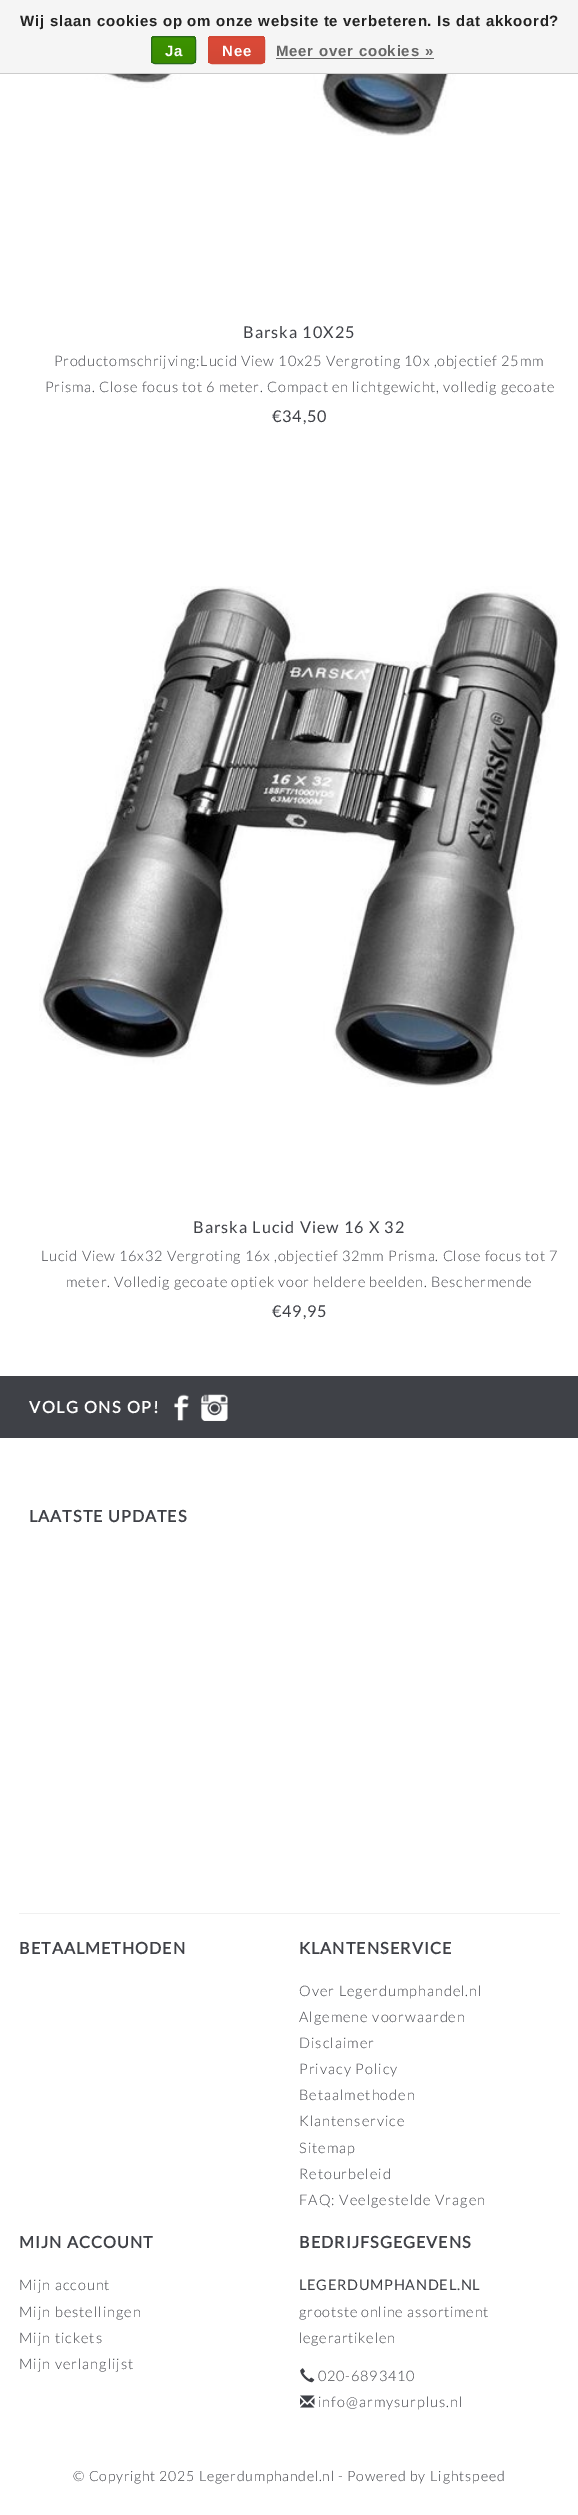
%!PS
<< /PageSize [578 2515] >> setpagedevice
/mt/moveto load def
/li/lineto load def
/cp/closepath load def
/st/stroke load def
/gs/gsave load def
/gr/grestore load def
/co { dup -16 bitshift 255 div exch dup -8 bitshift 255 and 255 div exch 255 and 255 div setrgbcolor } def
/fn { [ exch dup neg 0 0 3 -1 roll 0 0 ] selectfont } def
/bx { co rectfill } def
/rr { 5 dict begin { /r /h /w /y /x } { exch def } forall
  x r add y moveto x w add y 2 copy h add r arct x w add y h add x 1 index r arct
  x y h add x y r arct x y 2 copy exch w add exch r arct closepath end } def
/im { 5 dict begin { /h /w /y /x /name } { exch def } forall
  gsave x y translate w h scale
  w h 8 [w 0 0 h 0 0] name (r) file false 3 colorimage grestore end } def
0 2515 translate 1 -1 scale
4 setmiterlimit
0 0 578 2515 16#FFFFFF bx
0 0 578 73 16#F5F5F5 bx
0 73 578 1 16#CCCCCC bx
gs
151 36 45 28 4 rr clip newpath
gs 151 36 mt 196 36 li 196 38 li 151 38 li cp clip newpath
<< /ShadingType 2 /ColorSpace /DeviceRGB /Coords [174 12 174 38] /Extend [true true] /Function << /FunctionType 2 /Domain [0 1] /C0 [.235 .576 0] /C1 [.224 .541 0] /N 1 >> >> shfill gr
gs 151 38 mt 196 38 li 196 63 li 151 63 li cp clip newpath
<< /ShadingType 2 /ColorSpace /DeviceRGB /Coords [174 38 174 63] /Extend [true true] /Function << /FunctionType 2 /Domain [0 1] /C0 [.235 .576 0] /C1 [.224 .541 0] /N 1 >> >> shfill gr
gr
16#29691D co
151.5 36.5 44 27 3.5 rr st
gs
208 36 57 28 4 rr clip newpath
gs 208 36 mt 265 36 li 265 38 li 208 38 li cp clip newpath
<< /ShadingType 2 /ColorSpace /DeviceRGB /Coords [236 12 236 38] /Extend [true true] /Function << /FunctionType 2 /Domain [0 1] /C0 [.863 .29 .22] /C1 [.82 .282 .212] /N 1 >> >> shfill gr
gs 208 38 mt 265 38 li 265 63 li 208 63 li cp clip newpath
<< /ShadingType 2 /ColorSpace /DeviceRGB /Coords [236 37 236 63] /Extend [true true] /Function << /FunctionType 2 /Domain [0 1] /C0 [.863 .29 .22] /C1 [.82 .282 .212] /N 1 >> >> shfill gr
gr
16#D14836 co
208.5 36.5 56 27 3.5 rr st
276 58 158 1 16#666666 bx
(media/1.raw) 67 74 404 62 im
(media/2.raw) 39 586 521 501 im
0 1376 578 62 16#3F4147 bx
(media/3.raw) 174 1394 15 27 im
(media/4.raw) 201 1394 27 27 im
19 1913 541 1 16#F0F0F0 bx
(media/5.raw) 300 2368 15 15 im
(media/6.raw) 300 2395 15 13 im
/LiberationSans-Bold 15 fn
16#222222 co
20 26 mt .75 0 (Wij slaan cookies op om onze website te verbeteren. Is dat akkoord?) ashow
16#FFFFFF co
165 56 mt .75 0 (Ja) ashow
222 56 mt .75 0 (Nee) ashow
16#666666 co
276 56 mt .75 0 (Meer over cookies ») ashow
/Lato-Regular 16.25 fn
16#3F4147 co
243 338 mt 1 0 (Barska 10X25) ashow
/Lato-Light 14.5 fn
54 366 mt .75 0 (Productomschrijving:Lucid View 10x25 Vergroting 10x ,objectief 25mm) ashow
45 392 mt .75 0 (Prisma. Close focus tot 6 meter. Compact en lichtgewicht, volledig gecoate) ashow
/Lato-Regular 16.25 fn
272 422 mt .75 0 (€34,50) ashow
193 1233 mt 1 0 (Barska Lucid View 16 X 32) ashow
/Lato-Light 14.5 fn
41 1261 mt .75 0 (Lucid View 16x32 Vergroting 16x ,objectief 32mm Prisma. Close focus tot 7) ashow
66 1287 mt .75 0 (meter. Volledig gecoate optiek voor heldere beelden. Beschermende) ashow
/Lato-Regular 16.25 fn
272 1317 mt .75 0 (€49,95) ashow
/Lato-Bold 16.25 fn
16#FFFFFF co
29 1413 mt 1.5 0 (VOLG ONS OP!) ashow
16#3F4147 co
29 1522 mt 1 0 (LAATSTE UPDATES) ashow
19 1954 mt 1 0 (BETAALMETHODEN) ashow
299 1954 mt 1 0 (KLANTENSERVICE) ashow
/Lato-Light 14.5 fn
299 1996 mt 1 0 (Over Legerdumphandel.nl) ashow
299 2022 mt 1 0 (Algemene voorwaarden) ashow
299 2048 mt 1 0 (Disclaimer) ashow
299 2074 mt 1 0 (Privacy Policy) ashow
299 2100 mt 1 0 (Betaalmethoden) ashow
299 2126 mt 1 0 (Klantenservice) ashow
299 2153 mt 1 0 (Sitemap) ashow
299 2179 mt 1 0 (Retourbeleid) ashow
299 2205 mt 1 0 (FAQ: Veelgestelde Vragen) ashow
/Lato-Bold 16.25 fn
19 2248 mt 1 0 (MIJN ACCOUNT) ashow
/Lato-Light 14.5 fn
19 2290 mt 1 0 (Mijn account) ashow
19 2317 mt 1 0 (Mijn bestellingen) ashow
19 2343 mt 1 0 (Mijn tickets) ashow
19 2369 mt 1 0 (Mijn verlanglijst) ashow
/Lato-Bold 16.25 fn
299 2248 mt 1 0 (BEDRIJFSGEGEVENS) ashow
/Lato-Regular 14.5 fn
299 2290 mt .75 0 (LEGERDUMPHANDEL.NL) ashow
/Lato-Light 14.5 fn
299 2317 mt .75 0 (grootste online assortiment) ashow
299 2343 mt .75 0 (legerartikelen) ashow
318 2381 mt .75 0 (020-6893410) ashow
318 2407 mt 1 0 (info@armysurplus.nl) ashow
/Lato-Light 14.1 fn
73 2481 mt .75 0 (© Copyright 2025 Legerdumphandel.nl - Powered by) ashow
430 2481 mt 1 0 (Lightspeed) ashow
showpage
